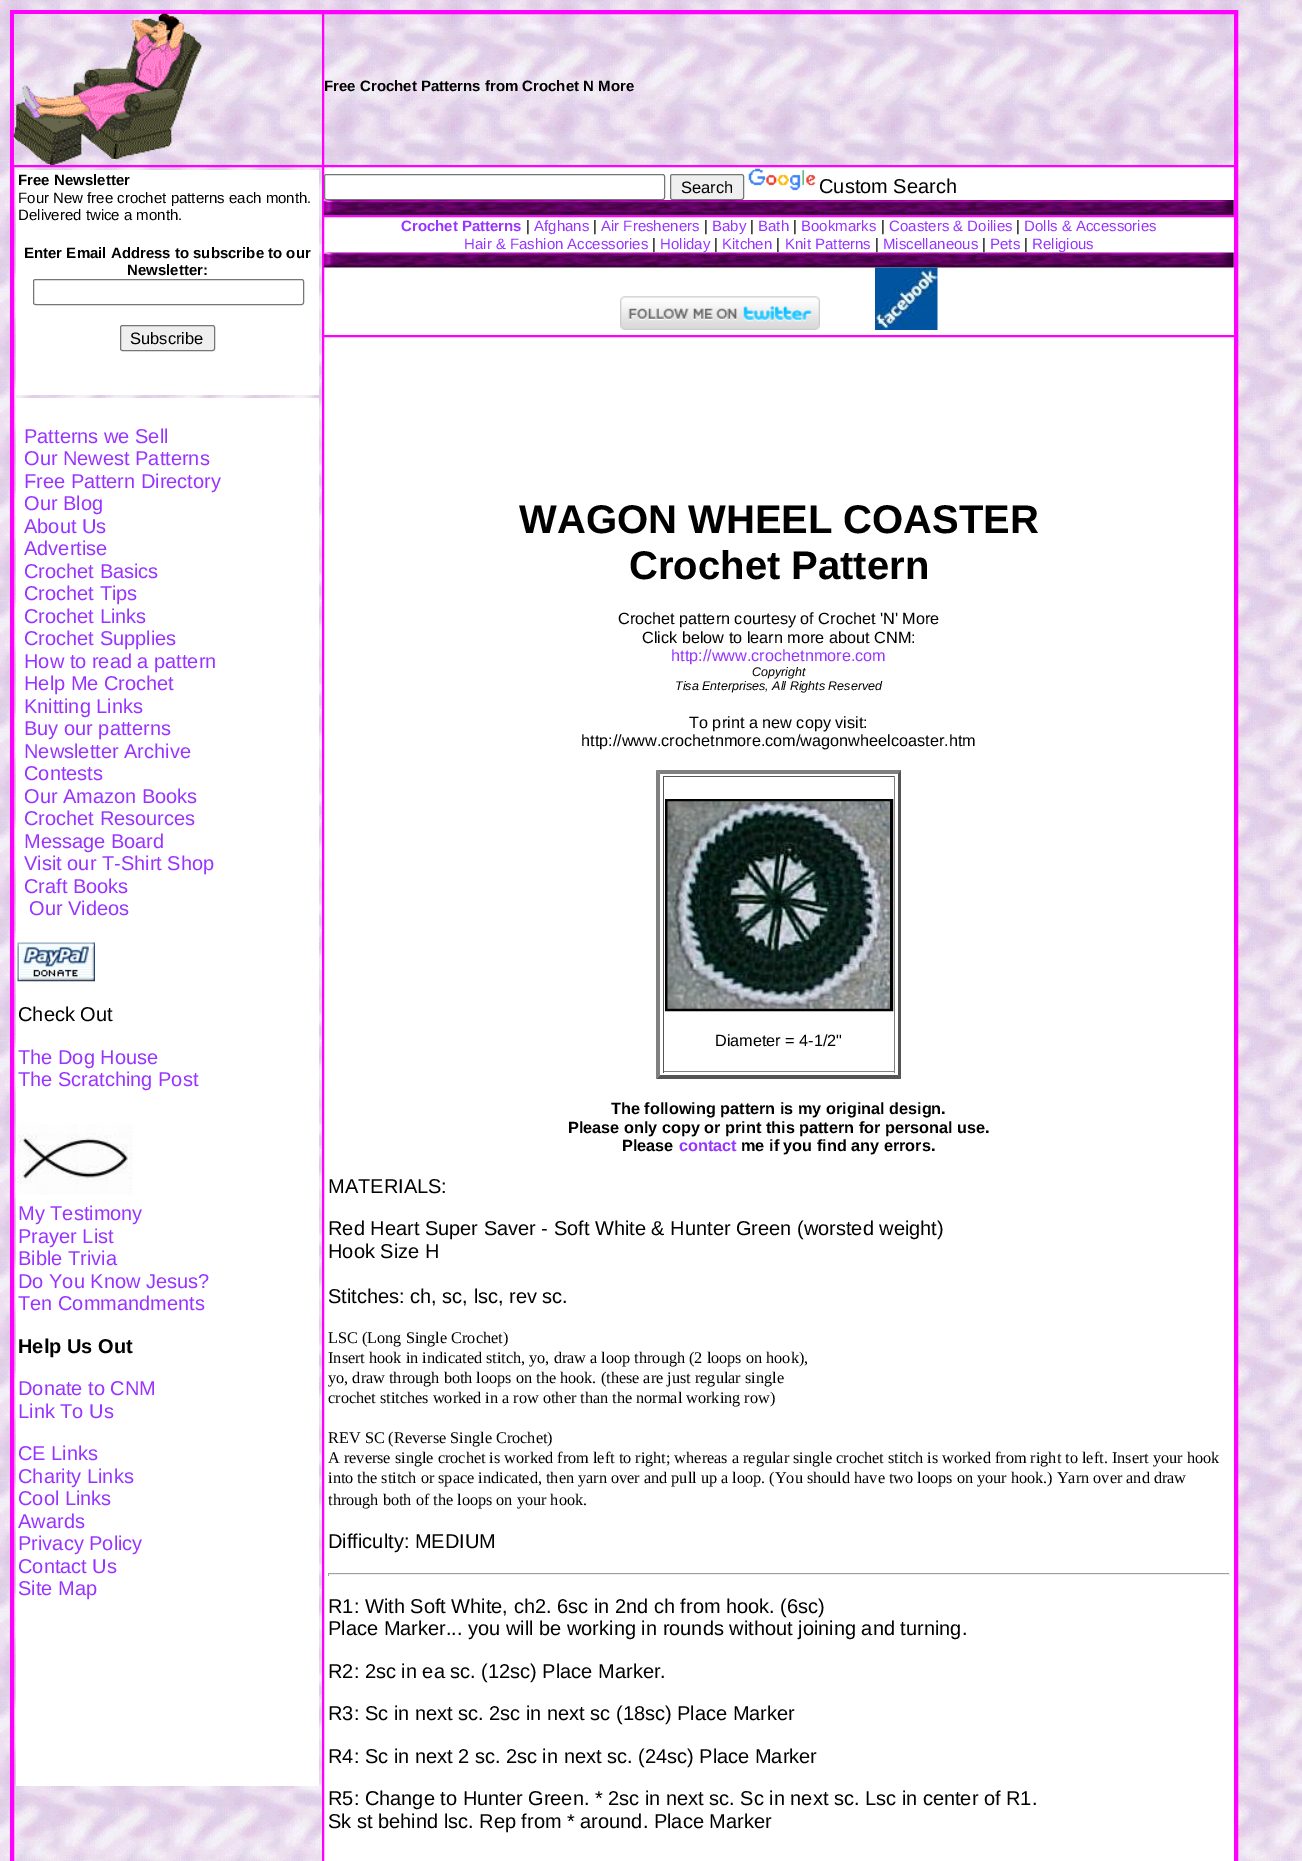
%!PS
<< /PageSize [1302 1861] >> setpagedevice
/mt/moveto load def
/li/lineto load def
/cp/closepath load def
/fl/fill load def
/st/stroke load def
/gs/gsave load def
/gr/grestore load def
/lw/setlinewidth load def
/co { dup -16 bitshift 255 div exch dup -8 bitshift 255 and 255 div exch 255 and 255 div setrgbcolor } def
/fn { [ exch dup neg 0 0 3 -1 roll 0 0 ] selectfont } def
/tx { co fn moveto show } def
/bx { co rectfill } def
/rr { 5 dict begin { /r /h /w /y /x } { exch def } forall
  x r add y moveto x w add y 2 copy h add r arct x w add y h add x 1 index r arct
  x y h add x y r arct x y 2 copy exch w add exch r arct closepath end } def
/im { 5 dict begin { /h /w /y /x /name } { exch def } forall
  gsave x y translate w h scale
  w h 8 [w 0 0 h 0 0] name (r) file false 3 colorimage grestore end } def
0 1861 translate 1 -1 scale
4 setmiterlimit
0 0 1302 1861 16#FFFFFF bx
(media/1.raw) 0 0 1302 1861 im
16#FF00FF co
3 lw
11.5 11.5 1225 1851 rectstroke
1 lw
13.5 13.5 309 152 rectstroke
(media/2.raw) 13 13 189 152 im
323.5 13.5 911 152 rectstroke
13.5 166.5 309 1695 rectstroke
16 170 303 225 16#FFFFFF bx
16#767676 co
33.5 279.5 270 25 2 rr st
16#EFEFEF co
120.5 325.5 94 25 2 rr gs fl gr
16#767676 co
st
16 398 303 1388 16#FFFFFF bx
(media/3.raw) 17 942 78 40 im
(media/4.raw) 17 1124 116 71 im
323.5 166.5 mt 1234.5 166.5 li 1234.5 215.5 li 323.5 215.5 li cp gs fl gr
16#FF00FF co
st
16#767676 co
324.5 174.5 340 25 2 rr st
16#EFEFEF co
670.5 174.5 73 25 2 rr gs fl gr
16#767676 co
st
(media/5.raw) 748 168 68 23 im
(media/6.raw) 323 200 911 15 im
16#FFFFFF co
323.5 216.5 mt 1234.5 216.5 li 1234.5 335.5 li 323.5 335.5 li cp gs fl gr
16#FF00FF co
st
(media/8.raw) 620 296 200 34 im
16#FFFFFF co
323.5 336.5 mt 1234.5 336.5 li 1234.5 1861.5 li 323.5 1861.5 li cp gs fl gr
16#FF00FF co
st
16#808080 co
656 770 mt 901 770 li 898 774 li 660 774 li cp fl
16#555555 co
901 770 mt 901 1079 li 898 1075 li 898 774 li cp fl
901 1079 mt 656 1079 li 660 1075 li 898 1075 li cp fl
16#808080 co
656 1079 mt 656 770 li 660 774 li 660 1075 li cp fl
663 776 232 1 16#555555 bx
894 776 1 297 16#808080 bx
663 1071 232 1 16#808080 bx
663 776 1 297 16#555555 bx
16#000000 co
3 lw
666.5 800.5 225 209 rectstroke
(media/10.raw) 667 801 223 208 im
328 1573 902 1 16#9F9F9F bx
1229 1573 1 3 16#EEEEEE bx
328 1574 902 1 16#EEEEEE bx
328 1573 1 3 16#9F9F9F bx
(Free Crochet Patterns from Crochet N More) 324 91 /LiberationSans-Bold 15 16#000000 tx
(Free Newsletter) 18 185 /LiberationSans-Bold 15 16#000000 tx
(Four New free crochet patterns each month.) 18 203 /LiberationSans-Regular 15 16#000000 tx
(Delivered twice a month.) 18 220 /LiberationSans-Regular 15 16#000000 tx
(Enter Email Address to subscribe to our) 24 258 /LiberationSans-Bold 15 16#000000 tx
(Newsletter:) 127 275 /LiberationSans-Bold 15 16#000000 tx
(Subscribe) 130 344 /LiberationSans-Regular 16.5 16#000000 tx
(Patterns we Sell) 24 443 /LiberationSans-Regular 20 16#9933FF tx
(Our Newest Patterns) 24 465 /LiberationSans-Regular 20 16#9933FF tx
(Free Pattern Directory) 24 488 /LiberationSans-Regular 20 16#9933FF tx
(Our Blog) 24 510 /LiberationSans-Regular 20 16#9933FF tx
(About Us) 24 533 /LiberationSans-Regular 20 16#9933FF tx
(Advertise) 24 555 /LiberationSans-Regular 20 16#9933FF tx
(Crochet Basics) 24 578 /LiberationSans-Regular 20 16#9933FF tx
(Crochet Tips) 24 600 /LiberationSans-Regular 20 16#9933FF tx
(Crochet Links) 24 623 /LiberationSans-Regular 20 16#9933FF tx
(Crochet Supplies) 24 645 /LiberationSans-Regular 20 16#9933FF tx
(How to read a pattern) 24 668 /LiberationSans-Regular 20 16#9933FF tx
(Help Me Crochet) 24 690 /LiberationSans-Regular 20 16#9933FF tx
(Knitting Links) 24 713 /LiberationSans-Regular 20 16#9933FF tx
(Buy our patterns) 24 735 /LiberationSans-Regular 20 16#9933FF tx
(Newsletter Archive) 24 758 /LiberationSans-Regular 20 16#9933FF tx
(Contests) 24 780 /LiberationSans-Regular 20 16#9933FF tx
(Our Amazon Books) 24 803 /LiberationSans-Regular 20 16#9933FF tx
(Crochet Resources) 24 825 /LiberationSans-Regular 20 16#9933FF tx
(Message Board) 24 848 /LiberationSans-Regular 20 16#9933FF tx
(Visit our T-Shirt Shop) 24 870 /LiberationSans-Regular 20 16#9933FF tx
(Craft Books) 24 893 /LiberationSans-Regular 20 16#9933FF tx
(Our Videos) 29 915 /LiberationSans-Regular 20 16#9933FF tx
(Check Out) 18 1021 /LiberationSans-Regular 20 16#000000 tx
(The Dog House) 18 1064 /LiberationSans-Regular 20 16#9933FF tx
(The Scratching Post) 18 1086 /LiberationSans-Regular 20 16#9933FF tx
(My Testimony) 18 1220 /LiberationSans-Regular 20 16#9933FF tx
(Prayer List) 18 1243 /LiberationSans-Regular 20 16#9933FF tx
(Bible Trivia) 18 1265 /LiberationSans-Regular 20 16#9933FF tx
(Do You Know Jesus?) 18 1288 /LiberationSans-Regular 20 16#9933FF tx
(Ten Commandments) 18 1310 /LiberationSans-Regular 20 16#9933FF tx
(Help Us Out) 18 1353 /LiberationSans-Bold 20 16#000000 tx
(Donate to CNM) 18 1395 /LiberationSans-Regular 20 16#9933FF tx
(Link To Us) 18 1418 /LiberationSans-Regular 20 16#9933FF tx
(CE Links) 18 1460 /LiberationSans-Regular 20 16#9933FF tx
(Charity Links) 18 1483 /LiberationSans-Regular 20 16#9933FF tx
(Cool Links) 18 1505 /LiberationSans-Regular 20 16#9933FF tx
(Awards) 18 1528 /LiberationSans-Regular 20 16#9933FF tx
(Privacy Policy) 18 1550 /LiberationSans-Regular 20 16#9933FF tx
(Contact Us) 18 1573 /LiberationSans-Regular 20 16#9933FF tx
(Site Map) 18 1595 /LiberationSans-Regular 20 16#9933FF tx
(Search) 681 193 /LiberationSans-Regular 16.5 16#000000 tx
(Custom Search) 819 193 /LiberationSans-Regular 20 16#000000 tx
(Crochet Patterns) 401 231 /LiberationSans-Bold 15 16#9933FF tx
(|) 526 231 /LiberationSans-Regular 15 16#000000 tx
(Afghans) 534 231 /LiberationSans-Regular 15 16#9933FF tx
(|) 593 231 /LiberationSans-Regular 15 16#000000 tx
(Air Fresheners) 601 231 /LiberationSans-Regular 15 16#9933FF tx
(|) 704 231 /LiberationSans-Regular 15 16#000000 tx
(Baby) 712 231 /LiberationSans-Regular 15 16#9933FF tx
(|) 750 231 /LiberationSans-Regular 15 16#000000 tx
(Bath) 758 231 /LiberationSans-Regular 15 16#9933FF tx
(|) 793 231 /LiberationSans-Regular 15 16#000000 tx
(Bookmarks) 801 231 /LiberationSans-Regular 15 16#9933FF tx
(|) 881 231 /LiberationSans-Regular 15 16#000000 tx
(Coasters & Doilies) 889 231 /LiberationSans-Regular 15 16#9933FF tx
(|) 1016 231 /LiberationSans-Regular 15 16#000000 tx
(Dolls & Accessories) 1024 231 /LiberationSans-Regular 15 16#9933FF tx
(Hair & Fashion Accessories) 464 249 /LiberationSans-Regular 15 16#9933FF tx
(|) 652 249 /LiberationSans-Regular 15 16#000000 tx
(Holiday) 660 249 /LiberationSans-Regular 15 16#9933FF tx
(|) 714 249 /LiberationSans-Regular 15 16#000000 tx
(Kitchen) 722 249 /LiberationSans-Regular 15 16#9933FF tx
(|) 776 249 /LiberationSans-Regular 15 16#000000 tx
(Knit Patterns) 785 249 /LiberationSans-Regular 15 16#9933FF tx
(|) 875 249 /LiberationSans-Regular 15 16#000000 tx
(Miscellaneous) 883 249 /LiberationSans-Regular 15 16#9933FF tx
(|) 982 249 /LiberationSans-Regular 15 16#000000 tx
(Pets) 990 249 /LiberationSans-Regular 15 16#9933FF tx
(|) 1024 249 /LiberationSans-Regular 15 16#000000 tx
(Religious) 1032 249 /LiberationSans-Regular 15 16#9933FF tx
(media/7.raw) 323 252 911 16 im
(media/9.raw) 875 267 63 63 im
(WAGON WHEEL COASTER) 519 533 /LiberationSans-Bold 40 16#000000 tx
(Crochet Pattern) 629 579 /LiberationSans-Bold 40 16#000000 tx
(Crochet pattern courtesy of Crochet 'N' More) 618 624 /LiberationSans-Regular 16.25 16#000000 tx
(Click below to learn more about CNM:) 642 643 /LiberationSans-Regular 16.25 16#000000 tx
(http://www.crochetnmore.com) 671 661 /LiberationSans-Regular 16.25 16#9933FF tx
(Copyright) 752 676 /LiberationSans-Italic 12.5 16#000000 tx
(Tisa Enterprises, All Rights Reserved) 675 690 /LiberationSans-Italic 12.5 16#000000 tx
(To print a new copy visit:) 689 728 /LiberationSans-Regular 16.25 16#000000 tx
(http://www.crochetnmore.com/wagonwheelcoaster.htm) 581 746 /LiberationSans-Regular 16.25 16#000000 tx
(Diameter = 4-1/2") 715 1046 /LiberationSans-Regular 16.25 16#000000 tx
(The following pattern is my original design.) 611 1114 /LiberationSans-Bold 16.25 16#000000 tx
(Please only copy or print this pattern for personal use.) 568 1133 /LiberationSans-Bold 16.25 16#000000 tx
(Please) 622 1151 /LiberationSans-Bold 16.25 16#000000 tx
(contact) 679 1151 /LiberationSans-Bold 16.25 16#9933FF tx
(me if you find any errors.) 741 1151 /LiberationSans-Bold 16.25 16#000000 tx
(MATERIALS:) 328 1193 /LiberationSans-Regular 20 16#000000 tx
(Red Heart Super Saver - Soft White & Hunter Green \(worsted weight\)) 328 1235 /LiberationSans-Regular 20 16#000000 tx
(Hook Size H) 328 1258 /LiberationSans-Regular 20 16#000000 tx
(Stitches: ch, sc, lsc, rev sc.) 328 1303 /LiberationSans-Regular 20 16#000000 tx
(LSC \(Long Single Crochet\)) 328 1343 /LiberationSerif-Regular 16.25 16#000000 tx
(Insert hook in indicated stitch, yo, draw a loop through \(2 loops on hook\),) 328 1363 /LiberationSerif-Regular 16.25 16#000000 tx
(yo, draw through both loops on the hook. \(these are just regular single) 328 1383 /LiberationSerif-Regular 16.25 16#000000 tx
(crochet stitches worked in a row other than the normal working row\)) 328 1403 /LiberationSerif-Regular 16.25 16#000000 tx
(REV SC \(Reverse Single Crochet\)) 328 1443 /LiberationSerif-Regular 16.25 16#000000 tx
(A reverse single crochet is worked from left to right; whereas a regular single crochet stitch is worked from right to left. Insert your hook) 328 1463 /LiberationSerif-Regular 16.25 16#000000 tx
(into the stitch or space indicated, then yarn over and pull up a loop. \(You should have two loops on your hook.\) Yarn over and draw) 328 1483 /LiberationSerif-Regular 16.25 16#000000 tx
(through both of the loops on your hook.) 328 1505 /LiberationSerif-Regular 16.25 16#000000 tx
(Difficulty: MEDIUM) 328 1548 /LiberationSans-Regular 20 16#000000 tx
(R1: With Soft White, ch2. 6sc in 2nd ch from hook. \(6sc\)) 328 1613 /LiberationSans-Regular 20 16#000000 tx
(Place Marker... you will be working in rounds without joining and turning.) 328 1635 /LiberationSans-Regular 20 16#000000 tx
(R2: 2sc in ea sc. \(12sc\) Place Marker.) 328 1678 /LiberationSans-Regular 20 16#000000 tx
(R3: Sc in next sc. 2sc in next sc \(18sc\) Place Marker) 328 1720 /LiberationSans-Regular 20 16#000000 tx
(R4: Sc in next 2 sc. 2sc in next sc. \(24sc\) Place Marker) 328 1763 /LiberationSans-Regular 20 16#000000 tx
(R5: Change to Hunter Green. * 2sc in next sc. Sc in next sc. Lsc in center of R1.) 328 1805 /LiberationSans-Regular 20 16#000000 tx
(Sk st behind lsc. Rep from * around. Place Marker) 328 1828 /LiberationSans-Regular 20 16#000000 tx
showpage
